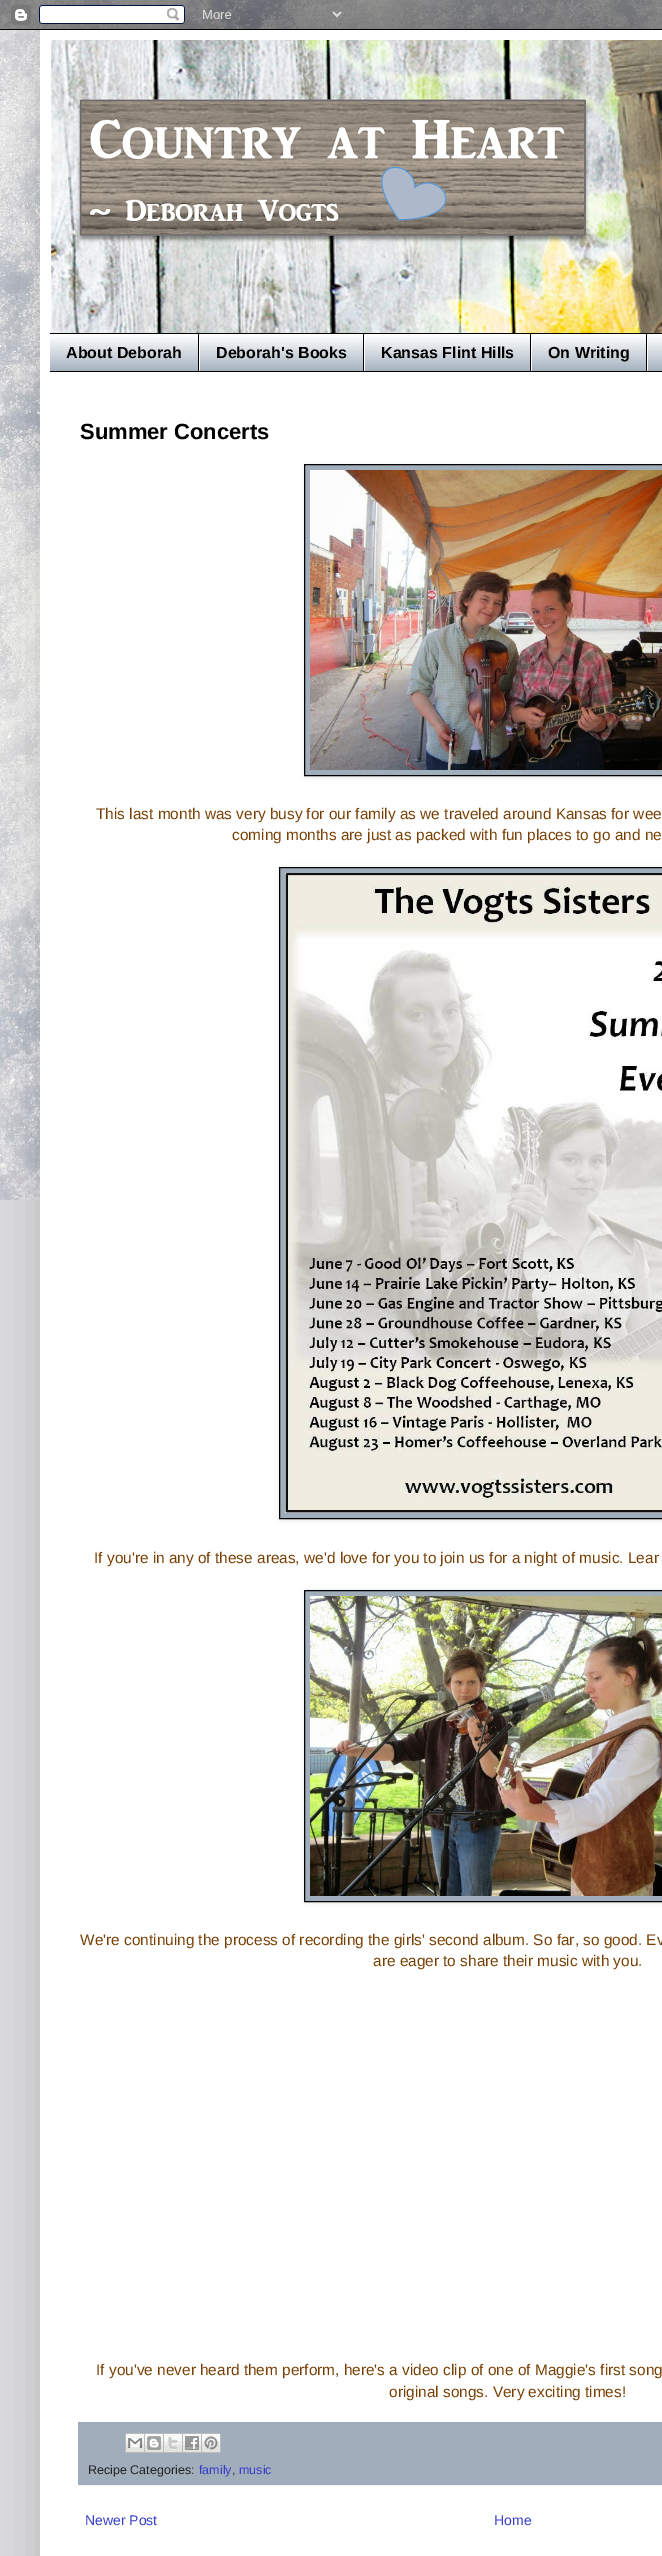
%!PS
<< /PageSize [662 2556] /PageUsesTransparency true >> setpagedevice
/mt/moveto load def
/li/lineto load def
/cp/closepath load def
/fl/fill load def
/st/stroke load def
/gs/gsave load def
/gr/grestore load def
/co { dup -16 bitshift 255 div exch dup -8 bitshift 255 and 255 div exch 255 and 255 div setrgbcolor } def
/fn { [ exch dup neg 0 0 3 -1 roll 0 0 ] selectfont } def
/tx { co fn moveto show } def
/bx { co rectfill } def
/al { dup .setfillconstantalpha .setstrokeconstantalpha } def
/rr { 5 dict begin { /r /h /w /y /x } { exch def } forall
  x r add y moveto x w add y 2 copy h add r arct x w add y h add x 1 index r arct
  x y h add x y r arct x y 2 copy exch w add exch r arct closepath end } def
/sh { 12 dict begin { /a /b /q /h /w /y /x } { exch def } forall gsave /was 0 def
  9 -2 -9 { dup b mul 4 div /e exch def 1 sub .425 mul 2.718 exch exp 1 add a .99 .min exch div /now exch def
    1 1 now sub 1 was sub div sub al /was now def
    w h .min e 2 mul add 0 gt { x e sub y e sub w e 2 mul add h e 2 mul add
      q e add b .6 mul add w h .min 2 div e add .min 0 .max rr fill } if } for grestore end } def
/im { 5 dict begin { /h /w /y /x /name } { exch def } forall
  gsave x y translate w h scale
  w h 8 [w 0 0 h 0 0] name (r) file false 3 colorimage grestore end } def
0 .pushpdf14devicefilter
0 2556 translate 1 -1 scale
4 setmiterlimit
0 0 662 2556 16#DADADC bx
(media/1.raw) 0 400 40 800 im
(media/2.raw) 0 0 662 400 im
16#000000 co
40 30 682 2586 0 20 .15 sh
(media/3.raw) 0 0 662 30 im
40 30 622 2526 16#FFFFFF bx
(media/4.raw) 51 40 611 293 im
50 335 612 36 16#A0ADBB bx
(media/5.raw) 50 334 612 37 im
50 333 612 1 16#000000 bx
50 371 612 1 16#000000 bx
198 334 1 37 16#000000 bx
363 334 1 37 16#000000 bx
199 334 1 37 16#FFFFFF bx
530 334 1 37 16#000000 bx
364 334 1 37 16#FFFFFF bx
646 334 1 37 16#000000 bx
531 334 1 37 16#FFFFFF bx
647 334 1 37 16#FFFFFF bx
16#000000 co
305 465 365 312 0 2.5 .1 sh
16#A0ADBB co
304.5 464.5 mt 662.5 464.5 li 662.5 775.5 li 304.5 775.5 li cp gs fl gr
16#000000 co
st
(media/6.raw) 310 470 352 300 im
280 868 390 652 0 2.5 .1 sh
16#A0ADBB co
279.5 867.5 mt 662.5 867.5 li 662.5 1518.5 li 279.5 1518.5 li cp gs fl gr
16#000000 co
st
(media/7.raw) 285 873 377 640 im
305 1591 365 312 0 2.5 .1 sh
16#A0ADBB co
304.5 1590.5 mt 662.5 1590.5 li 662.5 1901.5 li 304.5 1901.5 li cp gs fl gr
16#000000 co
st
(media/8.raw) 310 1596 352 300 im
78 2422 584 63 16#A0ADBB bx
78 2485 584 1 16#F0F0F0 bx
(media/9.raw) 125 2433 20 20 im
(media/10.raw) 145 2433 19 20 im
(media/11.raw) 164 2433 19 20 im
(media/12.raw) 183 2433 19 20 im
(media/13.raw) 202 2433 19 20 im
(About Deborah) 66 358 /LiberationSans-Bold 16 16#000000 tx
(Deborah's Books) 216 358 /LiberationSans-Bold 16 16#000000 tx
(Kansas Flint Hills) 381 358 /LiberationSans-Bold 16 16#000000 tx
(On Writing) 548 358 /LiberationSans-Bold 16 16#000000 tx
(Summer Concerts) 80 439 /LiberationSans-Bold 22 16#000000 tx
(This last month was very busy for our family as we traveled around Kansas for wee) 96 819 /LiberationSans-Regular 15.4 16#783F04 tx
(coming months are just as packed with fun places to go and ne) 232 840 /LiberationSans-Regular 15.4 16#783F04 tx
(If you're in any of these areas, we'd love for you to join us for a night of music. Lear) 94 1563 /LiberationSans-Regular 15.4 16#783F04 tx
(We're continuing the process of recording the girls' second album. So far, so good. Ev) 80 1945 /LiberationSans-Regular 15.4 16#783F04 tx
(are eager to share their music with you.) 373 1966 /LiberationSans-Regular 15.4 16#783F04 tx
(If you've never heard them perform, here's a video clip of one of Maggie's first song) 96 2375 /LiberationSans-Regular 15.4 16#783F04 tx
(original songs. Very exciting times!) 389 2397 /LiberationSans-Regular 15.4 16#783F04 tx
(Recipe Categories:) 88 2474 /LiberationSans-Regular 12.5 16#242424 tx
(family) 199 2474 /LiberationSans-Regular 12.5 16#393EC9 tx
(,) 232 2474 /LiberationSans-Regular 12.5 16#242424 tx
(music) 239 2474 /LiberationSans-Regular 12.5 16#393EC9 tx
(Newer Post) 85 2525 /LiberationSans-Regular 14 16#393EC9 tx
(Home) 494 2525 /LiberationSans-Regular 14 16#393EC9 tx
.poppdf14devicefilter showpage
